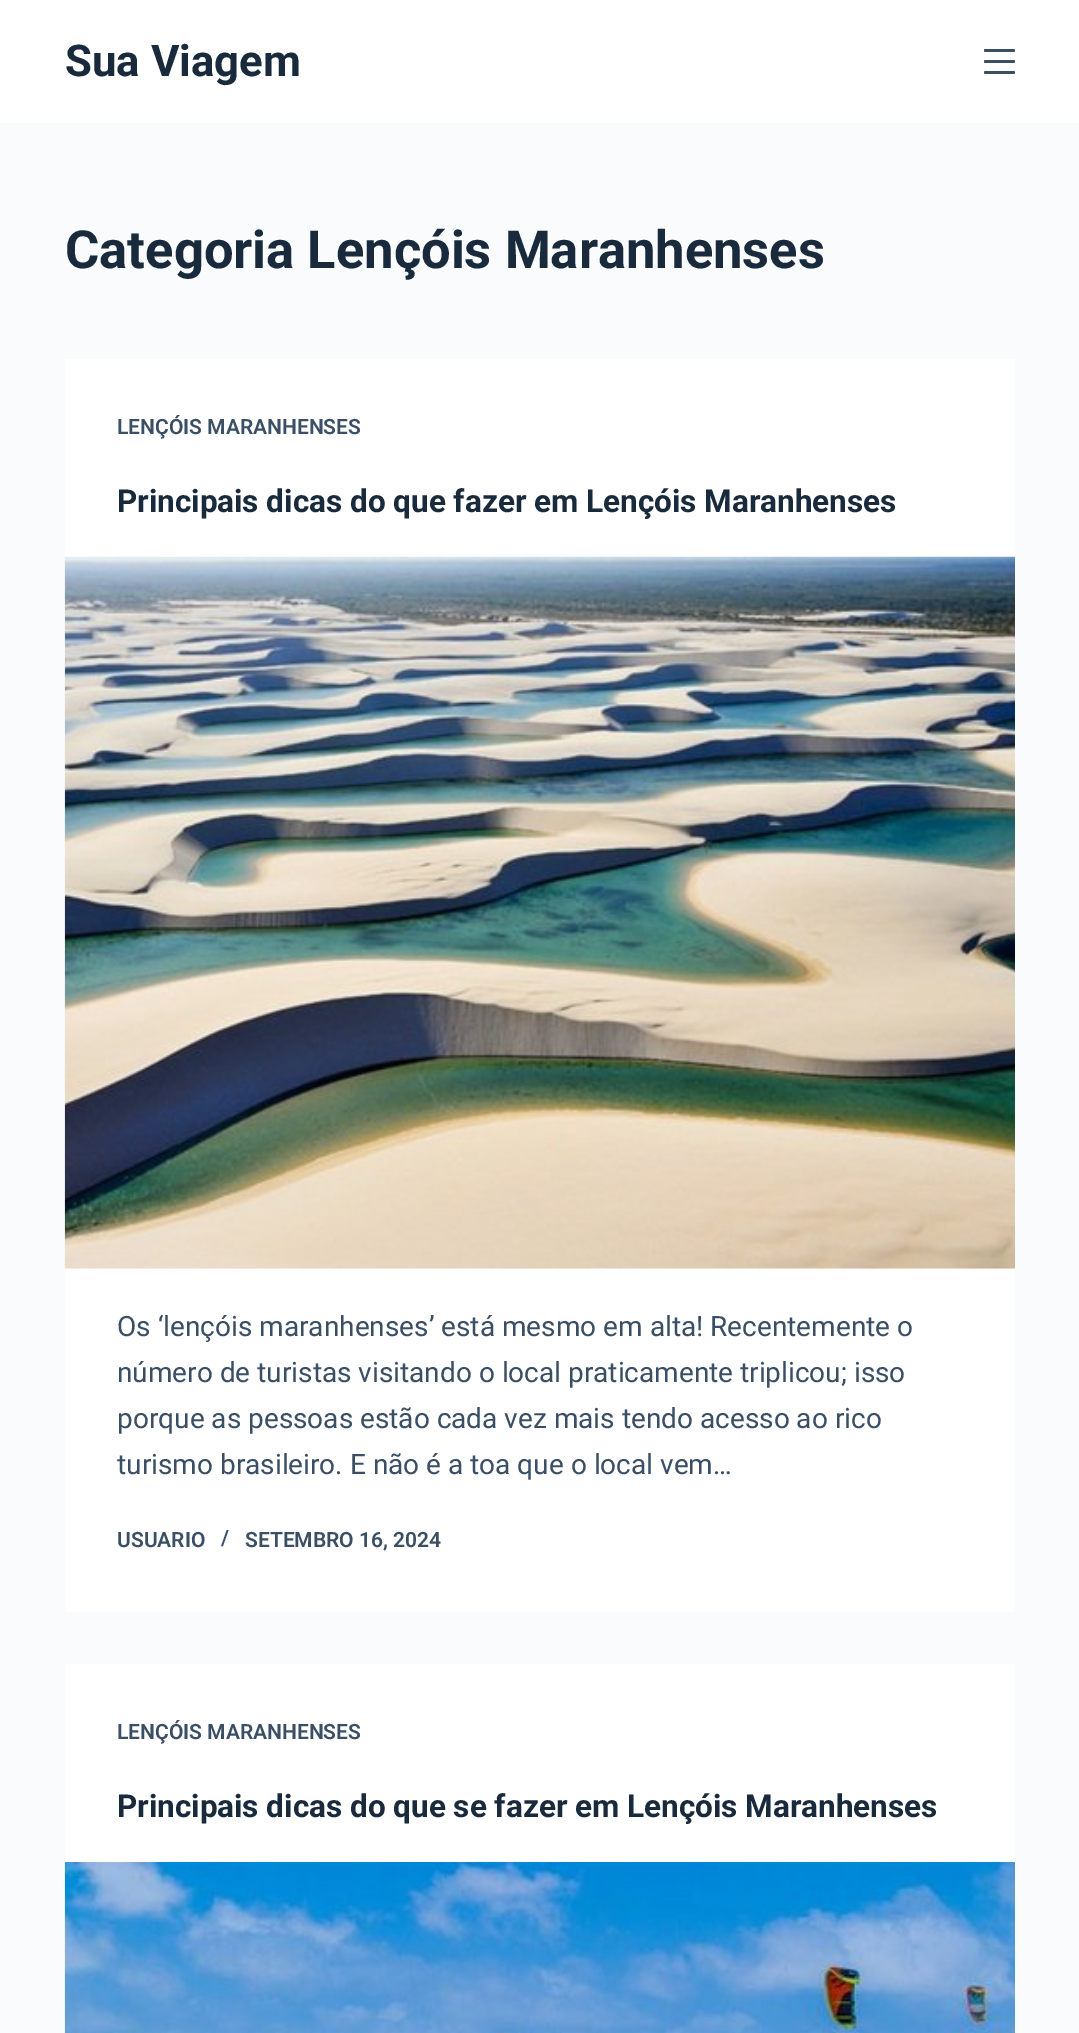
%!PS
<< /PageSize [1079 2033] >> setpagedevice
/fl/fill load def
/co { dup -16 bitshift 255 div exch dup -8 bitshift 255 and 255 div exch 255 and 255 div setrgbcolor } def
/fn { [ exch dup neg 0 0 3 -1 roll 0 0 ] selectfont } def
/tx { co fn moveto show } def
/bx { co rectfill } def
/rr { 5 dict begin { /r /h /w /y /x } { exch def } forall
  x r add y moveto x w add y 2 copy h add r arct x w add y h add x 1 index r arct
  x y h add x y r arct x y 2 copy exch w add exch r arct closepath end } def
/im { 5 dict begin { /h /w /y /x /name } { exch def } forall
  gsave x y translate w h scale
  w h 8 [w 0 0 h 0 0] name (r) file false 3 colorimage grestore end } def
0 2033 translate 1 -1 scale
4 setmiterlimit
0 0 1079 2033 16#FAFBFC bx
0 0 1079 123 16#FFFFFF bx
16#3A4F66 co
984 49 31 3 1.5 rr fl
984 60 31 3 1.5 rr fl
984 71 31 3 1.5 rr fl
65 359 950 1253 16#FFFFFF bx
(media/1.raw) 64 556 951 713 im
65 1664 950 198 16#FFFFFF bx
(media/2.raw) 64 1862 951 171 im
(Sua Viagem) 65 76 /Roboto-Bold 43.75 16#192A3D tx
(Categoria Lençóis Maranhenses) 65 268 /Roboto-Bold 52.5 16#192A3D tx
(LENÇÓIS MARANHENSES) 117 434 /Roboto-SemiBold 21 16#3A4F66 tx
(Principais dicas do que fazer em Lençóis Maranhenses) 117 512 /Roboto-Bold 31.5 16#192A3D tx
(Os ‘lençóis maranhenses’ está mesmo em alta! Recentemente o) 117 1336 /Roboto-Regular 28 16#3A4F66 tx
(número de turistas visitando o local praticamente triplicou; isso) 117 1382 /Roboto-Regular 28 16#3A4F66 tx
(porque as pessoas estão cada vez mais tendo acesso ao rico) 117 1428 /Roboto-Regular 28 16#3A4F66 tx
(turismo brasileiro. E não é a toa que o local vem…) 117 1474 /Roboto-Regular 28 16#3A4F66 tx
(USUARIO) 117 1547 /Roboto-SemiBold 21 16#3A4F66 tx
(/) 221 1545 /Roboto-SemiBold 21 16#3A4F66 tx
(SETEMBRO 16, 2024) 245 1547 /Roboto-SemiBold 21 16#3A4F66 tx
(LENÇÓIS MARANHENSES) 117 1739 /Roboto-SemiBold 21 16#3A4F66 tx
(Principais dicas do que se fazer em Lençóis Maranhenses) 117 1817 /Roboto-Bold 31.5 16#192A3D tx
showpage
